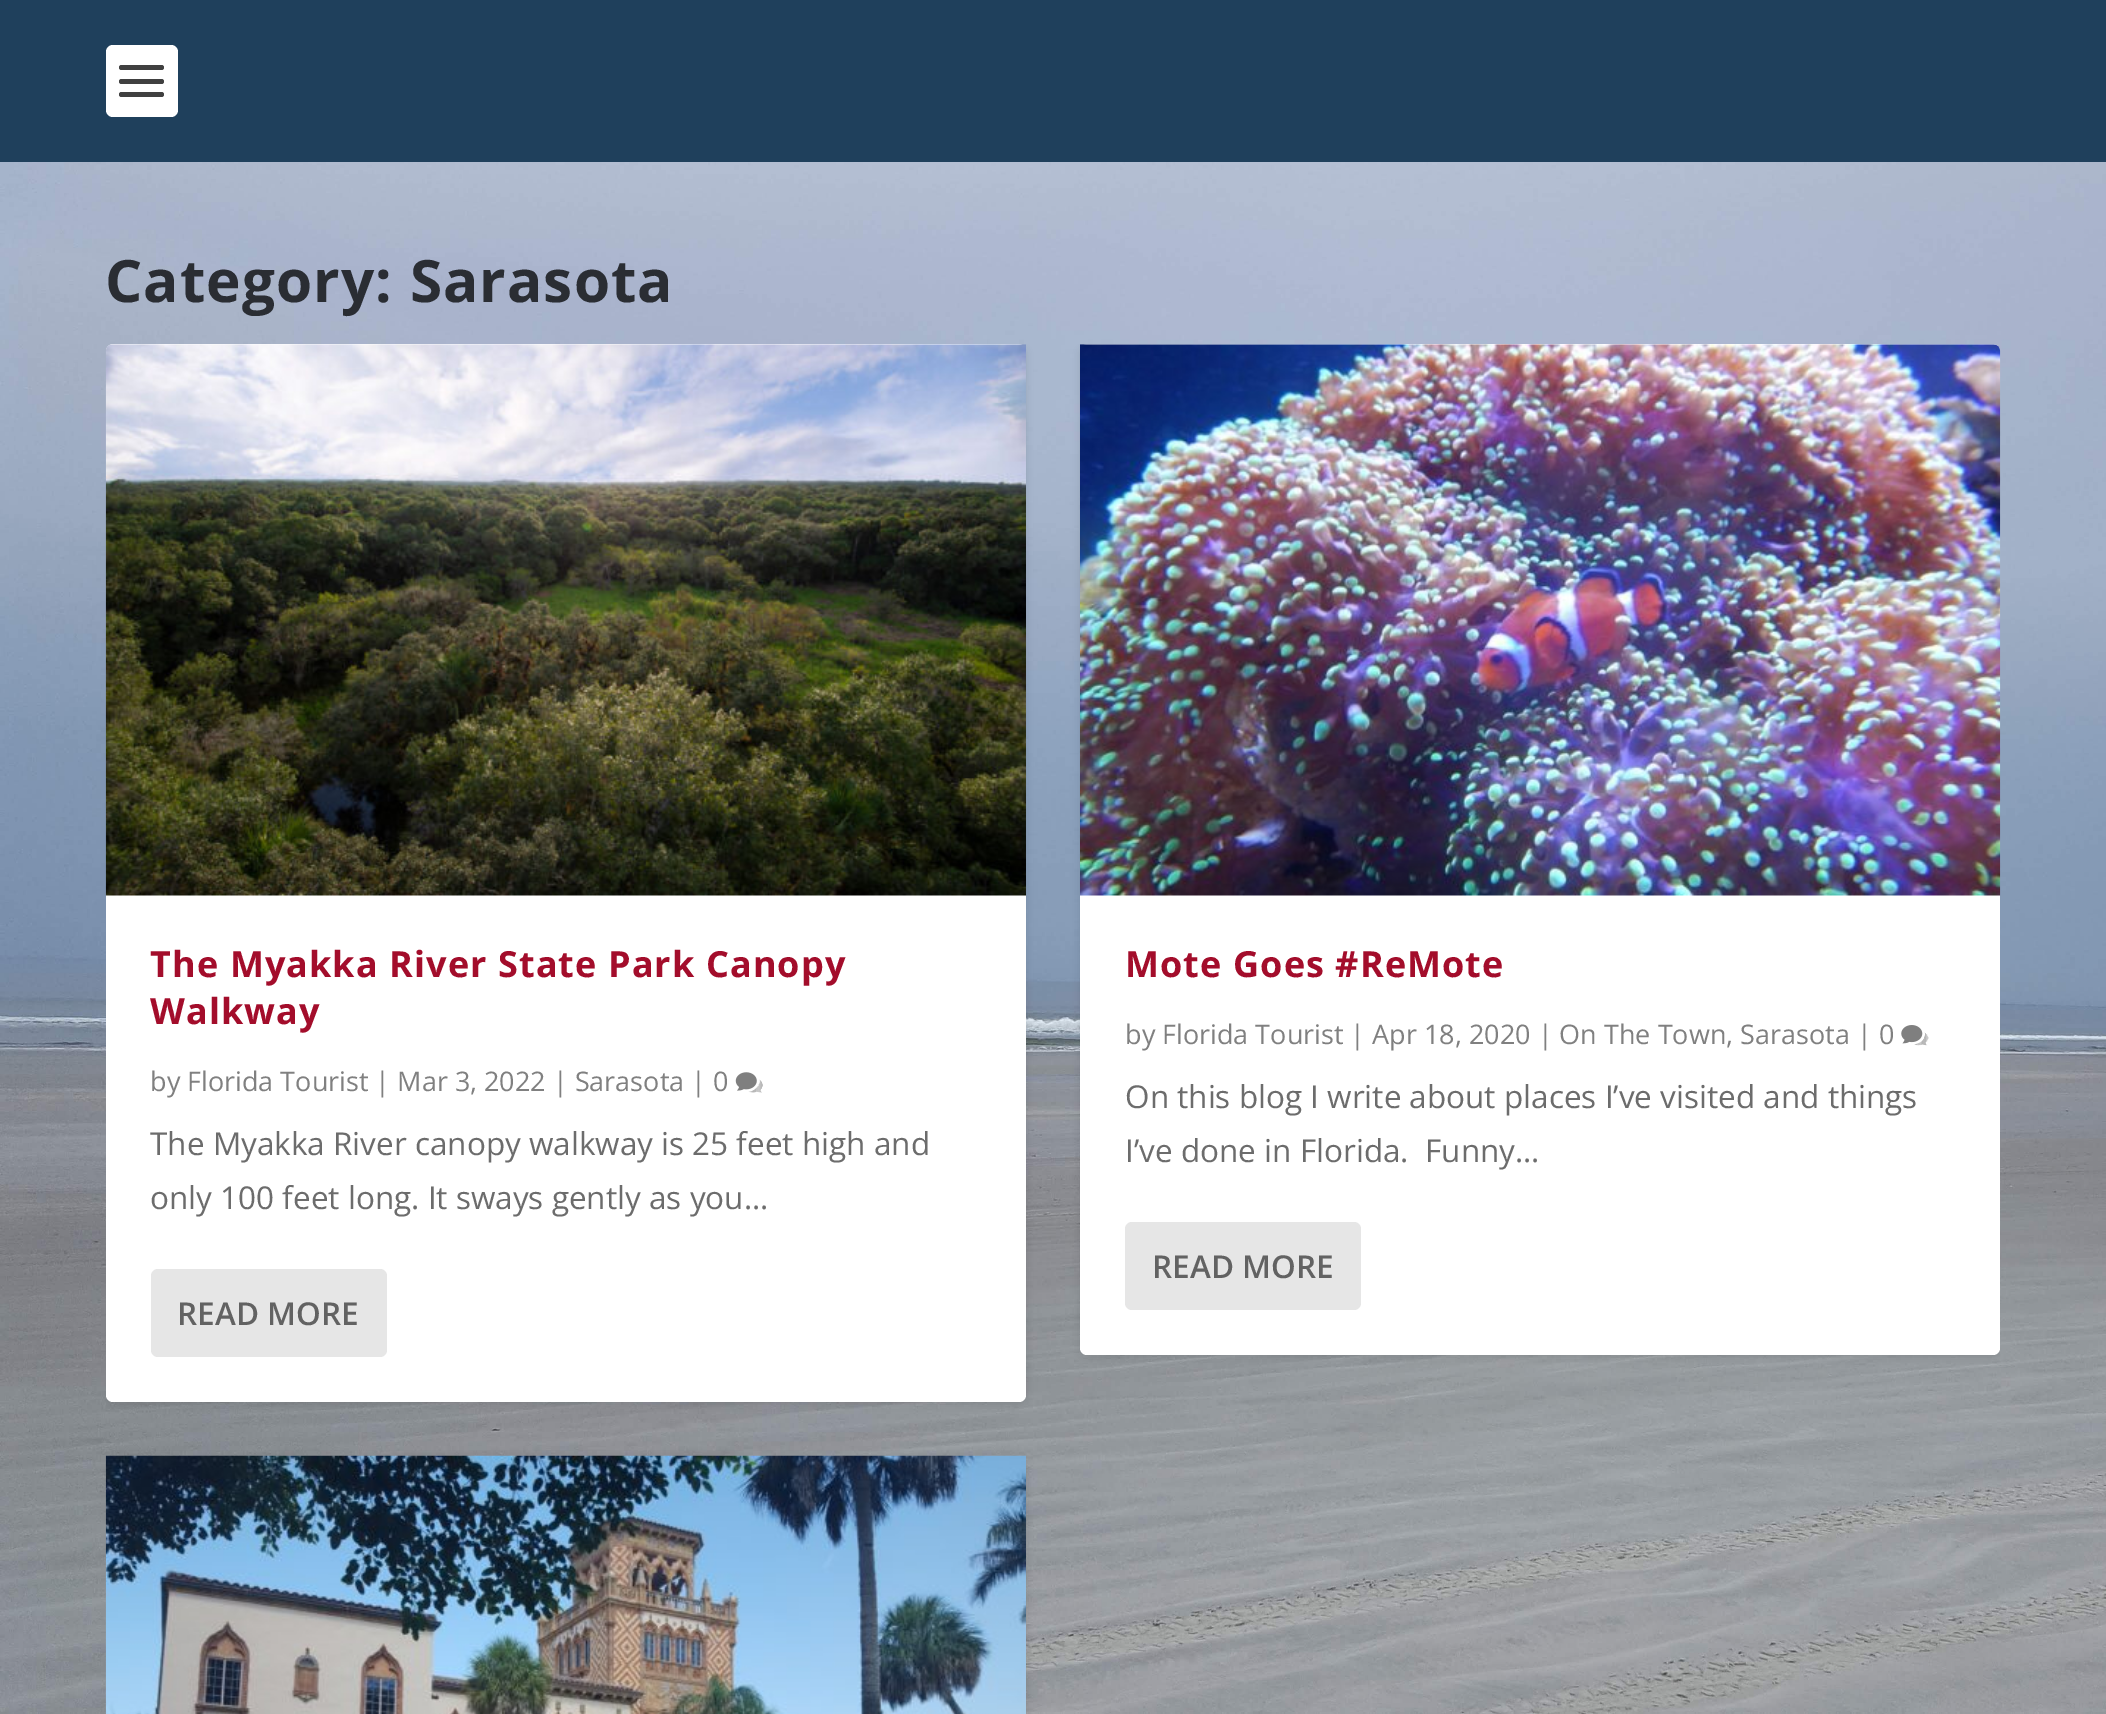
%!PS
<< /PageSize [2106 1714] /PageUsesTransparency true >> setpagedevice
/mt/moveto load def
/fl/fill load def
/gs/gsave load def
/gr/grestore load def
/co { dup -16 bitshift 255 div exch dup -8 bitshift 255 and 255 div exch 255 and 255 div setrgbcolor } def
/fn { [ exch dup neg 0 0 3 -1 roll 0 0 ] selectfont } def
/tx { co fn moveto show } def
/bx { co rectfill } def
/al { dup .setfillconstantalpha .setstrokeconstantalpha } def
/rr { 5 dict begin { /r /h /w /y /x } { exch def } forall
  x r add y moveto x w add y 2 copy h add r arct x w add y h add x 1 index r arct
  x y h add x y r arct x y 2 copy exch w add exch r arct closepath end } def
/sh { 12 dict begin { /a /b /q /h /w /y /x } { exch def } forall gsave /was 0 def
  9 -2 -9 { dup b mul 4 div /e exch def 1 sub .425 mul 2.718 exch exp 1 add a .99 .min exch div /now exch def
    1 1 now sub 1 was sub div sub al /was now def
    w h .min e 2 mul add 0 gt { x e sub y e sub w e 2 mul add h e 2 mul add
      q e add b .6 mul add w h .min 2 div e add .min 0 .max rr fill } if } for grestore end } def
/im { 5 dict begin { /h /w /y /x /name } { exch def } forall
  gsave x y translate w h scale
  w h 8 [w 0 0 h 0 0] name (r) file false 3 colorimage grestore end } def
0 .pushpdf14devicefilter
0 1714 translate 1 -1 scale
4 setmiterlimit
0 0 2106 1714 16#FFFFFF bx
(media/1.raw) 0 162 2106 1552 im
0 0 2106 162 16#1F405C bx
16#FFFFFF co
106 45 72 72 7 rr fl
16#404040 co
119 65 45 5 2.5 rr fl
119 79 45 5 2.5 rr fl
119 92 45 5 2.5 rr fl
gs
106 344 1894 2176 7 rr clip newpath
16#000000 co
106 347 920 1057 7 3.5 .1 sh
gr
16#FFFFFF co
106 344 920 1058 7 rr fl
(media/2.raw) 105 344 921 552 im
(media/3.raw) 735 1072 28 21 im
16#E6E6E6 co
151 1269 236 88 7 rr fl
gs
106 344 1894 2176 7 rr clip newpath
16#000000 co
106 1458 920 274 7 3.5 .1 sh
gr
(media/4.raw) 105 1455 921 259 im
gs
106 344 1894 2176 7 rr clip newpath
16#000000 co
1080 347 920 1010 7 3.5 .1 sh
gr
16#FFFFFF co
1080 344 920 1011 7 rr fl
(media/5.raw) 1080 344 921 552 im
(media/6.raw) 1901 1025 28 21 im
16#E6E6E6 co
1125 1222 236 88 7 rr fl
/OpenSans-Bold 58.5 fn
16#2A2D33 co
105 302 mt 1.1 0 (Category: Sarasota) ashow
/OpenSans-Bold 36 fn
16#A30D2B co
150 977 mt 1.1 0 (The Myakka River State Park Canopy) ashow
150 1024 mt 1.1 0 (Walkway) ashow
(by Florida Tourist | Mar 3, 2022 | Sarasota | 0) 150 1091 /OpenSans-Regular 27 16#808080 tx
(The Myakka River canopy walkway is 25 feet high and) 150 1155 /OpenSans-Regular 31.5 16#6C6C6C tx
(only 100 feet long. It sways gently as you...) 150 1209 /OpenSans-Regular 31.5 16#6C6C6C tx
(READ MORE) 177 1325 /OpenSans-SemiBold 31.5 16#626262 tx
/OpenSans-Bold 36 fn
16#A30D2B co
1125 977 mt 1.1 0 (Mote Goes #ReMote) ashow
(by Florida Tourist | Apr 18, 2020 | On The Town, Sarasota | 0) 1125 1044 /OpenSans-Regular 27 16#808080 tx
(On this blog I write about places I’ve visited and things) 1125 1108 /OpenSans-Regular 31.5 16#6C6C6C tx
(I’ve done in Florida.  Funny...) 1125 1162 /OpenSans-Regular 31.5 16#6C6C6C tx
(READ MORE) 1152 1278 /OpenSans-SemiBold 31.5 16#626262 tx
.poppdf14devicefilter showpage
